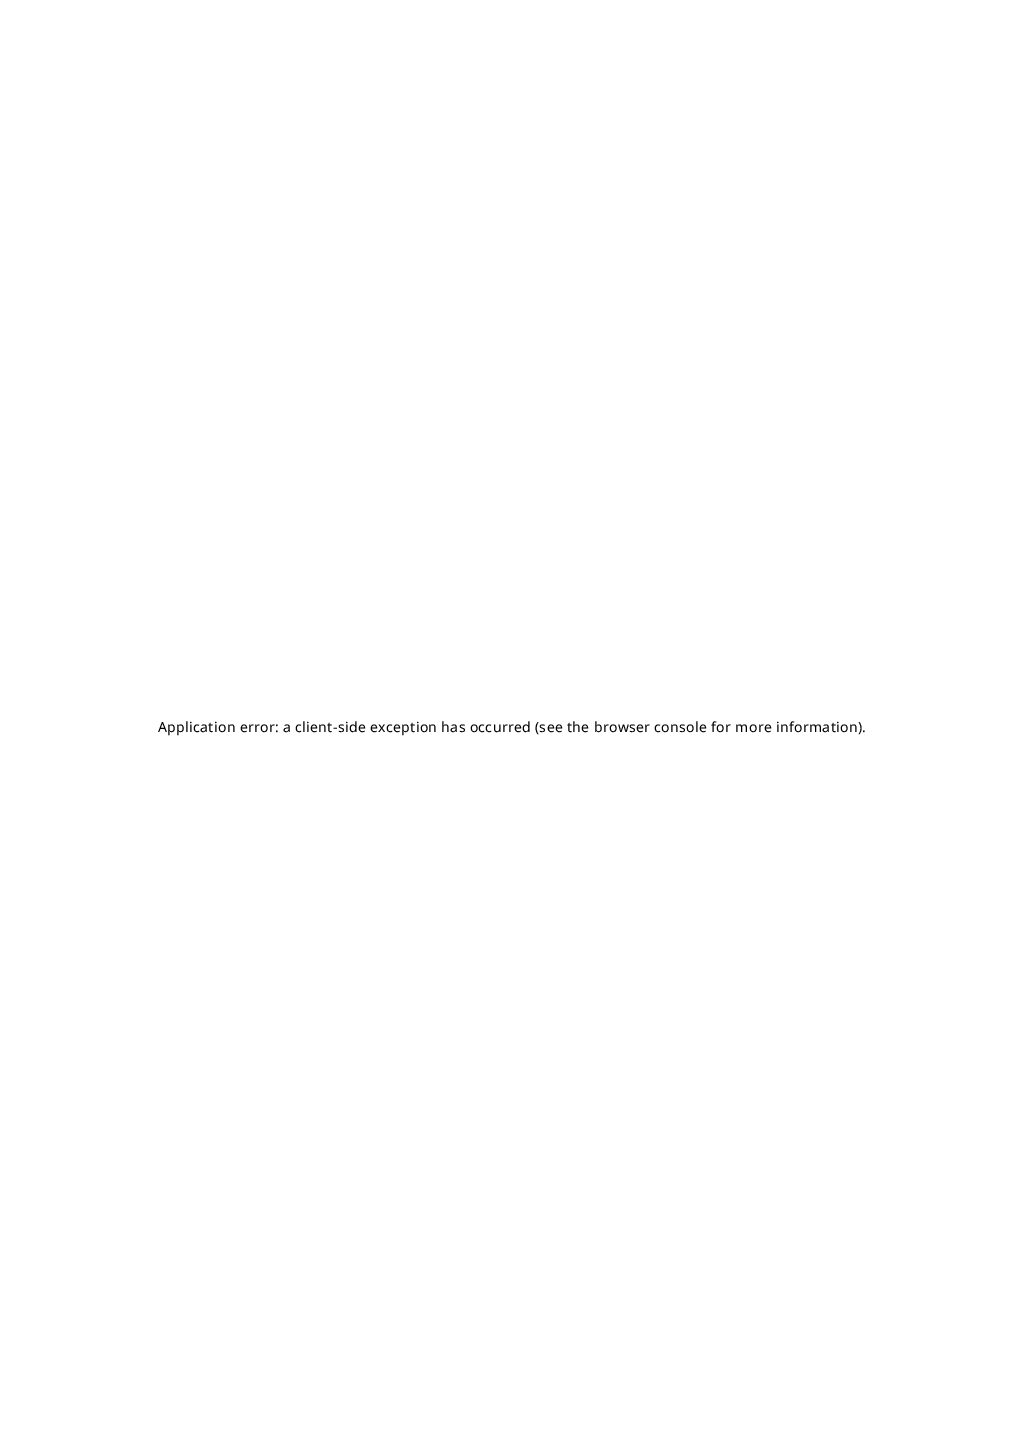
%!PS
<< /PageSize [1024 1453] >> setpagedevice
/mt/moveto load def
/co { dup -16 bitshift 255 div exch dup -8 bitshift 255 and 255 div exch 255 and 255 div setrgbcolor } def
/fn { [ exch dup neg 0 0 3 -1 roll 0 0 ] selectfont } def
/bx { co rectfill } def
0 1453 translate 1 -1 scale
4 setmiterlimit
0 0 1024 1453 16#FFFFFF bx
/NotoSans-Regular 14 fn
16#000000 co
158 732 mt .35 0 (Application error: a client-side exception has occurred \(see the browser console for more information\).) ashow
showpage
